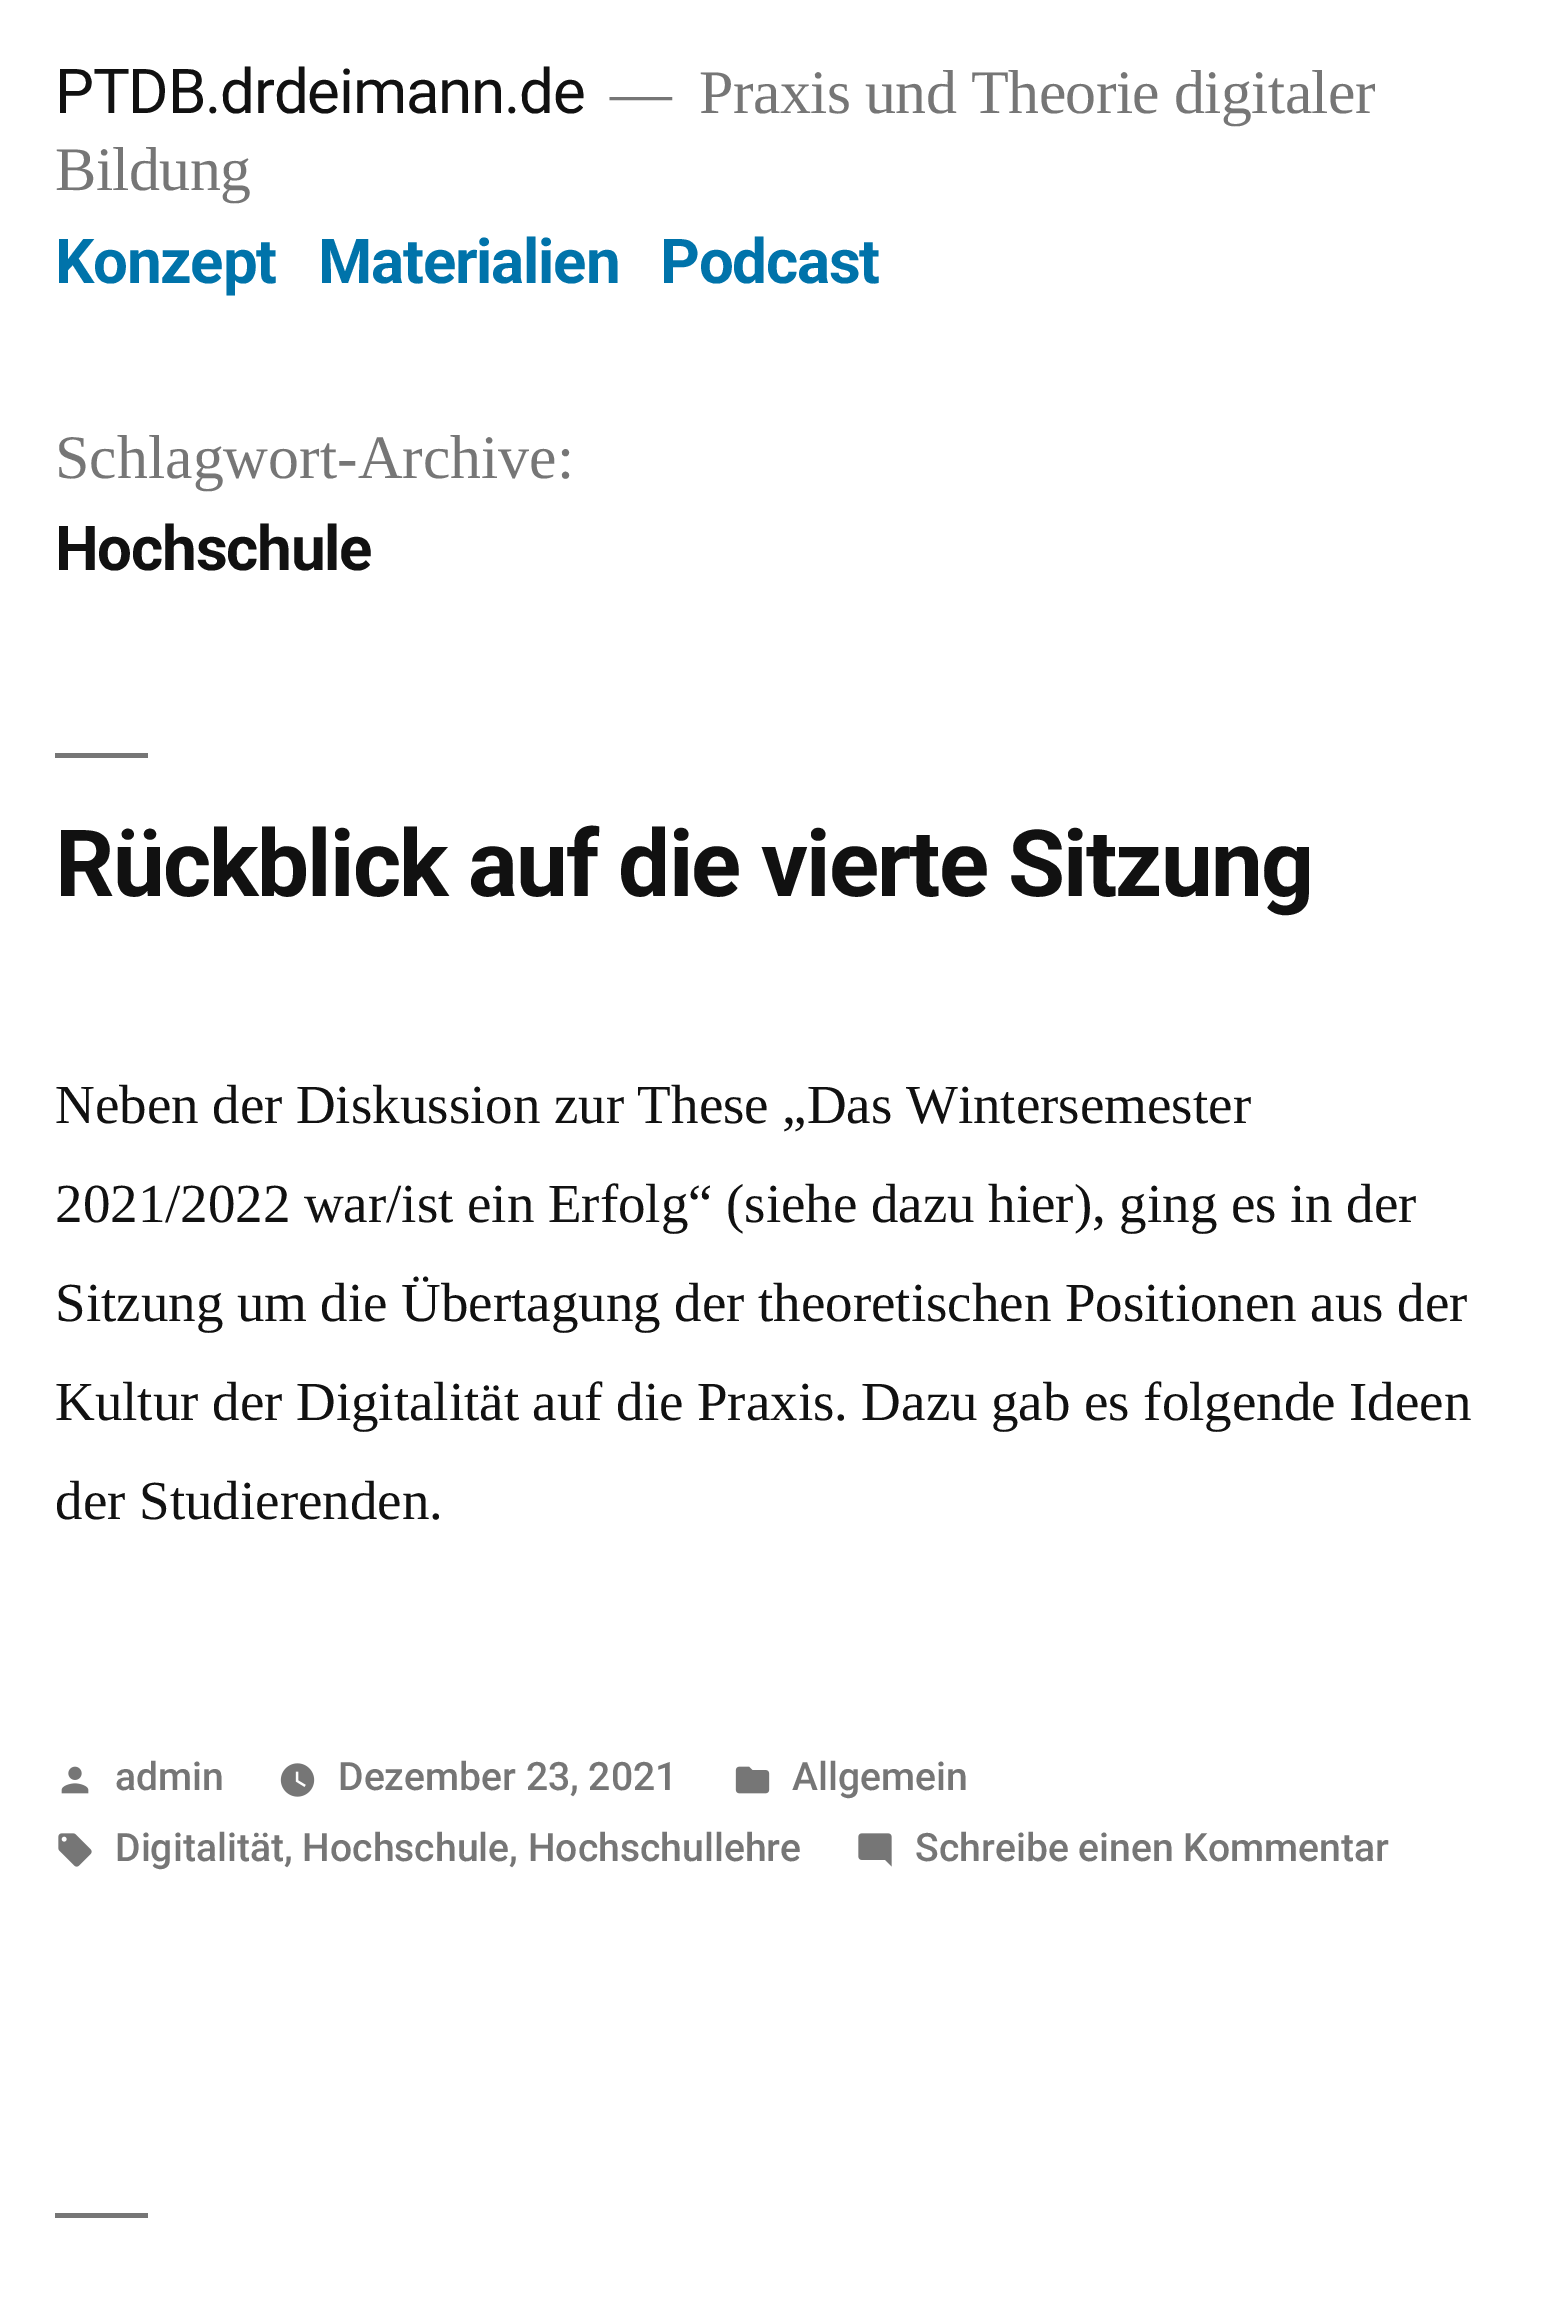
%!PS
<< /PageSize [1544 2299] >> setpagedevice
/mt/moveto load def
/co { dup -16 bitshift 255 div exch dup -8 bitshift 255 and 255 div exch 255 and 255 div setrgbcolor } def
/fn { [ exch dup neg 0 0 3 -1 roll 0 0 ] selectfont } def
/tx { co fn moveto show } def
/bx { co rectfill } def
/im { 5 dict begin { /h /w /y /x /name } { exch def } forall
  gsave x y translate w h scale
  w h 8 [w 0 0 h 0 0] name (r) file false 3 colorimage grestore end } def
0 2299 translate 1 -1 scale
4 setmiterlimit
0 0 1544 2299 16#FFFFFF bx
55 753 93 5 16#767676 bx
(media/1.raw) 61 1766 28 28 im
(media/2.raw) 280 1763 35 34 im
(media/3.raw) 735 1766 35 28 im
(media/4.raw) 58 1833 34 34 im
(media/5.raw) 858 1833 34 34 im
55 2213 93 5 16#767676 bx
/Roboto-Regular 61.9 fn
16#111111 co
55 113 mt -1.25 0 (PTDB.drdeimann.de) ashow
/LiberationSerif-Regular 61.9 fn
16#767676 co
610 113 mt -.6 0 (—) ashow
699 113 mt -.6 0 (Praxis und Theorie digitaler) ashow
55 190 mt -.6 0 (Bildung) ashow
/Roboto-Bold 61.9 fn
16#0073AA co
55 283 mt -1.25 0 (Konzept) ashow
318 283 mt -1.25 0 (Materialien) ashow
660 283 mt -1.25 0 (Podcast) ashow
(Schlagwort-Archive:) 55 478 /LiberationSerif-Regular 61.9 16#767676 tx
/Roboto-Bold 61.9 fn
16#111111 co
55 570 mt -1.25 0 (Hochschule) ashow
/Roboto-Bold 92.75 fn
55 896 mt -1.85 0 (Rückblick auf die vierte Sitzung) ashow
/LiberationSerif-Regular 55 fn
55 1123 mt -.25 0 32 (Neben der Diskussion zur These „Das Wintersemester) widthshow
55 1222 mt -.25 0 32 (2021/2022 war/ist ein Erfolg“ \(siehe dazu hier\), ging es in der) widthshow
55 1321 mt -.25 0 32 (Sitzung um die Übertagung der theoretischen Positionen aus der) widthshow
55 1420 mt -.25 0 32 (Kultur der Digitalität auf die Praxis. Dazu gab es folgende Ideen) widthshow
(der Studierenden.) 55 1519 /LiberationSerif-Regular 55 16#111111 tx
(admin) 115 1790 /Roboto-Medium 39.1 16#767676 tx
(Dezember 23, 2021) 338 1790 /Roboto-Medium 39.1 16#767676 tx
(Allgemein) 792 1790 /Roboto-Medium 39.1 16#767676 tx
(Digitalität, Hochschule, Hochschullehre) 115 1861 /Roboto-Medium 39.1 16#767676 tx
(Schreibe einen Kommentar) 915 1861 /Roboto-Medium 39.1 16#767676 tx
showpage
